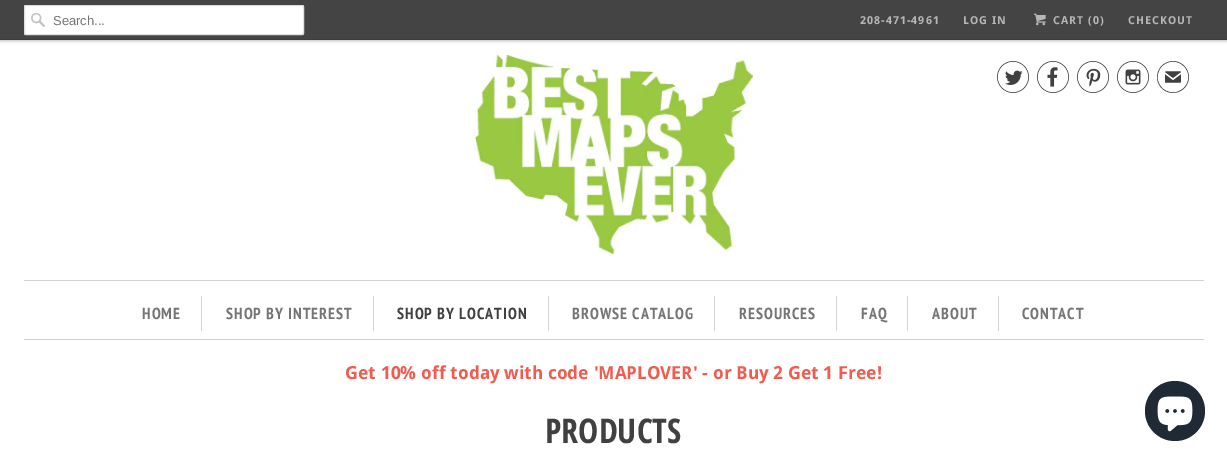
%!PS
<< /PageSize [1227 462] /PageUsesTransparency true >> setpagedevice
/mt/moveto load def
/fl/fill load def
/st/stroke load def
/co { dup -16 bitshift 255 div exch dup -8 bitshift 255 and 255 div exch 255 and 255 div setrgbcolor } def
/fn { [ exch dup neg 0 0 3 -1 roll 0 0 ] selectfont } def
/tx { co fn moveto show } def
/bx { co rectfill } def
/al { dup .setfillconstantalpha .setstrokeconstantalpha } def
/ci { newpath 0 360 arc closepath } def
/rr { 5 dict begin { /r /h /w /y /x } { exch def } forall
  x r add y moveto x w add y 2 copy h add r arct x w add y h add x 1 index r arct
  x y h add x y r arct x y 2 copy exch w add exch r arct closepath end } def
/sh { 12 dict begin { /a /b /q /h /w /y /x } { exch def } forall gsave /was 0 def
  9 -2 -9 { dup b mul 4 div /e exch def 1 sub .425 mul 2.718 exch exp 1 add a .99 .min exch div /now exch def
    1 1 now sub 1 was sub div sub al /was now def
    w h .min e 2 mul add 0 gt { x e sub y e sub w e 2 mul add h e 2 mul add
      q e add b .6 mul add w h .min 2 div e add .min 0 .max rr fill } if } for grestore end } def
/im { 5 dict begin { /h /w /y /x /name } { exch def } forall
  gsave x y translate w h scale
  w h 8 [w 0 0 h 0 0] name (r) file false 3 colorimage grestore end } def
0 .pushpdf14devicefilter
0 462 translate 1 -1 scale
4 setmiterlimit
0 0 1227 462 16#FFFFFF bx
16#000000 co
0 1 1227 40 0 1.5 .25 sh
0 0 1227 39 16#444444 bx
0 39 1227 1 16#3D3D3D bx
16#FFFFFF co
24 5 280 30 2 rr fl
(media/1.raw) 31 13 14 14 im
16#DFDFDF co
24.5 5.5 279 29 1.5 rr st
(media/2.raw) 1034 13 12 13 im
(media/3.raw) 474 55 279 199 im
(media/4.raw) 997 61 32 32 im
(media/5.raw) 1037 61 32 32 im
(media/6.raw) 1077 61 32 32 im
(media/7.raw) 1117 61 32 32 im
24 280 1180 1 16#D3D3D3 bx
24 339 1180 1 16#D3D3D3 bx
201 296 1 35 16#D3D3D3 bx
373 296 1 35 16#D3D3D3 bx
548 296 1 35 16#D3D3D3 bx
714 296 1 35 16#D3D3D3 bx
836 296 1 35 16#D3D3D3 bx
907 296 1 35 16#D3D3D3 bx
998 296 1 35 16#D3D3D3 bx
16#202A36 co
1175 411 30 ci fl
(media/8.raw) 1157 396 36 36 im
(Search...) 53 25 /LiberationSans-Regular 13 16#757575 tx
/DroidSans-Bold 11 fn
16#B6B6B6 co
860 24 mt 1 0 (208-471-4961) ashow
963 24 mt 1 0 (LOG IN) ashow
1053 24 mt 1 0 (CART \(0\)) ashow
1128 24 mt 1 0 (CHECKOUT) ashow
(✉) 1157 93 /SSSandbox-Regular 32 16#404040 tx
/PTSansNarrow-Bold 16 fn
16#757575 co
142 319 mt 1 0 (HOME) ashow
226 319 mt 1 0 (SHOP BY INTEREST) ashow
16#404040 co
397 319 mt 1 0 (SHOP BY LOCATION) ashow
16#757575 co
572 319 mt 1 0 (BROWSE CATALOG) ashow
739 319 mt 1 0 (RESOURCES) ashow
861 319 mt 1 0 (FAQ) ashow
932 319 mt 1 0 (ABOUT) ashow
1022 319 mt 1 0 (CONTACT) ashow
(Get 10% off today with code 'MAPLOVER' - or Buy 2 Get 1 Free!) 345 379 /DroidSans-Bold 18 16#F15C4F tx
(PRODUCTS) 545 443 /OpenSansCondensed-Bold 34 16#404040 tx
.poppdf14devicefilter showpage
